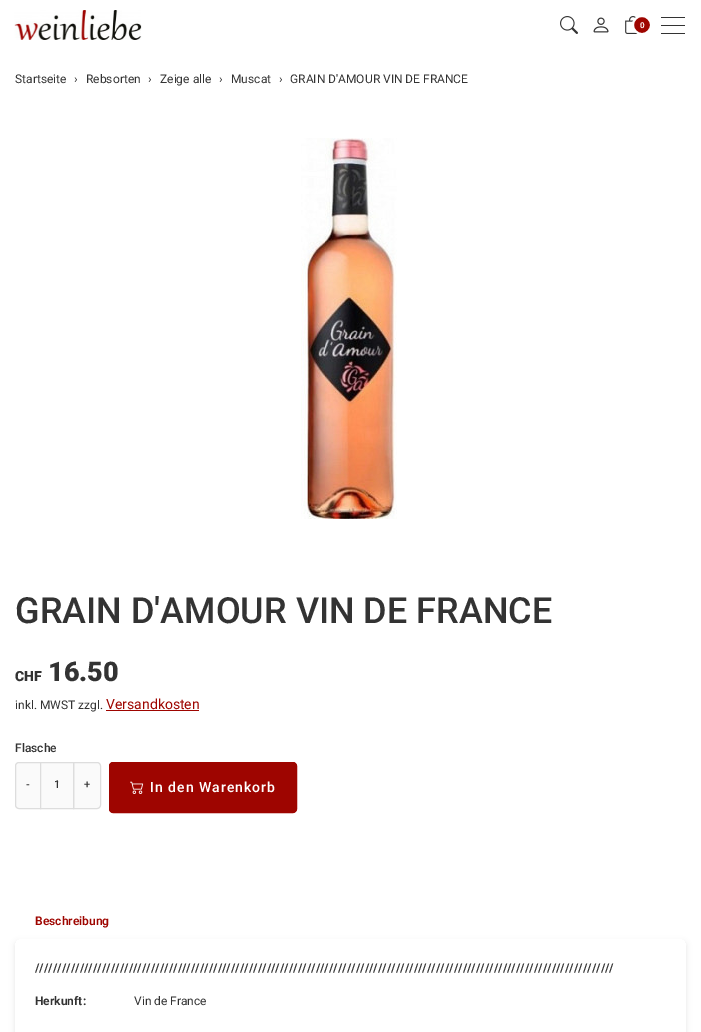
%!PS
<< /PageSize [701 1032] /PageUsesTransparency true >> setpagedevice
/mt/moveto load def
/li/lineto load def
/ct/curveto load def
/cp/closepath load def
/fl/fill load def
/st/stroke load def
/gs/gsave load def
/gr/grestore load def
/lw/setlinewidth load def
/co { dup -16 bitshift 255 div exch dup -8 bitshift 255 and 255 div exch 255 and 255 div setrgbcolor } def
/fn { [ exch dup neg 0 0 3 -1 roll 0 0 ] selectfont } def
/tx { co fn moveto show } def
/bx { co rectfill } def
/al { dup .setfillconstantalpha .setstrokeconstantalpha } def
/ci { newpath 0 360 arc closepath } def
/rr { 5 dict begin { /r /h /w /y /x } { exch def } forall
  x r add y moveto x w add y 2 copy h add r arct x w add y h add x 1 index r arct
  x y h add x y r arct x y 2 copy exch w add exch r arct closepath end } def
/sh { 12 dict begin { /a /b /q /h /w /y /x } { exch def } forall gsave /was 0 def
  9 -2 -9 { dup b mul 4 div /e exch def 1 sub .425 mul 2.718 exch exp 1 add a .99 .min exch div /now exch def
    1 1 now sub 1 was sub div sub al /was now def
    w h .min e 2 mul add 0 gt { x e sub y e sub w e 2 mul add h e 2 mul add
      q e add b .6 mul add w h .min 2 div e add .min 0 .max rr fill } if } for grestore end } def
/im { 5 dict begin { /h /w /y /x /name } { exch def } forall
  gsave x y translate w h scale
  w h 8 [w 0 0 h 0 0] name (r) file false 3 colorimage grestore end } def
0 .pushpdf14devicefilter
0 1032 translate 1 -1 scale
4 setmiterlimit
0 0 701 1032 16#FFFFFF bx
(media/1.raw) 14 10 128 30 im
(media/2.raw) 560 16 18 18 im
(media/3.raw) 593 17 16 16 im
(media/4.raw) 625 16 13 18 im
16#9E0500 co
642 25 9 ci gs fl gr
16#FFFFFF co
2 lw
st
661 17 24 1 16#333333 bx
661 25 24 1 16#333333 bx
661 33 24 1 16#333333 bx
(media/5.raw) 301 138 96 381 im
106 710 93 1 16#9E0500 bx
16#FAFAFA co
19 762.5 mt 40.5 762.5 li 40.5 808.5 li 19 808.5 li 17 808.5 15.5 807 15.5 805 ct 15.5 766 li 15.5 764 17 762.5 19 762.5 ct cp gs fl gr
16#DDDDDD co
1 lw
st
16#FAFAFA co
73.5 762.5 mt 97 762.5 li 99 762.5 100.5 764 100.5 766 ct 100.5 805 li 100.5 807 99 808.5 97 808.5 ct 73.5 808.5 li cp gs fl gr
16#DDDDDD co
st
16#FAFAFA co
40.5 762.5 mt 73.5 762.5 li 73.5 808.5 li 40.5 808.5 li cp gs fl gr
16#DDDDDD co
st
16#9E0500 co
109.5 762.5 187 50 3.5 rr gs fl gr
st
(media/6.raw) 130 781 14 13 im
gs
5 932 mt 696 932 li 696 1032 li 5 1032 li cp 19 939 mt 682 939 li 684 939 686 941 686 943 ct 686 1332 li 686 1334 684 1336 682 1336 ct 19 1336 li 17 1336 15 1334 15 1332 ct 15 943 li 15 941 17 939 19 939 ct cp eoclip newpath
16#000000 co
15 942 671 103 4 3 .1 sh
gr
(0) 640 28 /Roboto-SemiBold 8 16#FFFFFF tx
(Startseite) 15 83 /Roboto-Regular 12 16#333333 tx
(›) 74 83 /Roboto-Regular 12 16#333333 tx
(Rebsorten) 86 83 /Roboto-Regular 12 16#333333 tx
(›) 148 83 /Roboto-Regular 12 16#333333 tx
(Zeige alle) 160 83 /Roboto-Regular 12 16#333333 tx
(›) 219 83 /Roboto-Regular 12 16#333333 tx
(Muscat) 231 83 /Roboto-Regular 12 16#333333 tx
(›) 279 83 /Roboto-Regular 12 16#333333 tx
(GRAIN D'AMOUR VIN DE FRANCE) 290 83 /Roboto-Regular 12 16#333333 tx
(GRAIN D'AMOUR VIN DE FRANCE) 15 623 /Roboto-Medium 36 16#333333 tx
(CHF) 15 681 /Roboto-Black 14 16#333333 tx
(16.50) 48 681 /Roboto-Black 27 16#333333 tx
(inkl. MWST zzgl.) 15 709 /Roboto-Regular 12 16#333333 tx
(Versandkosten) 106 709 /Roboto-Regular 14 16#9E0500 tx
(Flasche) 15 752 /Roboto-Medium 12 16#333333 tx
(-) 26 788 /Roboto-Medium 11 16#333333 tx
(1) 54 788 /Roboto-Medium 11 16#333333 tx
(+) 84 788 /Roboto-Medium 11 16#333333 tx
/Roboto-Medium 14 fn
16#FFFFFF co
150 792 mt 1 0 (In den Warenkorb) ashow
(Beschreibung) 35 925 /Roboto-SemiBold 12 16#9E0500 tx
(//////////////////////////////////////////////////////////////////////////////////////////////////////////////////////////////////) 35 972 /Roboto-Bold 12 16#333333 tx
(Herkunft:) 35 1005 /Roboto-Bold 12 16#333333 tx
(Vin de France) 134 1005 /Roboto-Regular 12 16#333333 tx
.poppdf14devicefilter showpage
